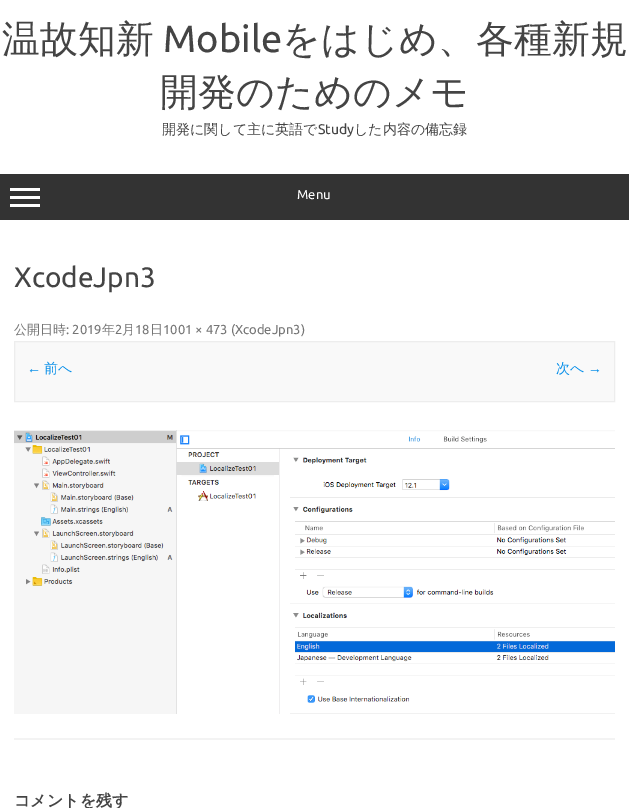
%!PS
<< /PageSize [629 808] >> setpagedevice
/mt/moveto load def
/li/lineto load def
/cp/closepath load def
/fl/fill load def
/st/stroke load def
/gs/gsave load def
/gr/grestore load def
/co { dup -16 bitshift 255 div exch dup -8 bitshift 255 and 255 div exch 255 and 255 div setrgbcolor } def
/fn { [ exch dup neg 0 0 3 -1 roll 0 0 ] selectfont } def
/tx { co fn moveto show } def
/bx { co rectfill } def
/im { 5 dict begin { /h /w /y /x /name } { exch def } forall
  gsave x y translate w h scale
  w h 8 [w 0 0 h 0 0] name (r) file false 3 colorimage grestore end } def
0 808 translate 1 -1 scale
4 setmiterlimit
0 0 629 808 16#FFFFFF bx
0 174 629 46 16#333333 bx
10 188 30 3 16#FFFFFF bx
10 196 30 3 16#FFFFFF bx
10 204 30 3 16#FFFFFF bx
14 738 601 2 16#F3F3F3 bx
16#F9F9F9 co
14.5 341.5 mt 614.5 341.5 li 614.5 401.5 li 14.5 401.5 li cp gs fl gr
16#EDEDED co
st
(media/1.raw) 14 430 601 284 im
(温故知新) 2 52 /WenQuanYiZenHei-Medium 38 16#444444 tx
(Mobile) 163 52 /Ubuntu-Regular 38 16#444444 tx
(をはじめ、各種新規) 282 52 /WenQuanYiZenHei-Medium 38 16#444444 tx
(開発のためのメモ) 160 105 /WenQuanYiZenHei-Medium 38 16#444444 tx
(開発に関して主に英語で) 162 134 /WenQuanYiZenHei-Medium 14 16#444444 tx
(Study) 318 134 /Ubuntu-Regular 14 16#444444 tx
(した内容の備忘録) 354 134 /WenQuanYiZenHei-Medium 14 16#444444 tx
(Menu) 297 199 /Ubuntu-Regular 13 16#FFFFFF tx
(XcodeJpn3) 14 287 /Ubuntu-Regular 28 16#444444 tx
(公開日時) 14 334 /WenQuanYiZenHei-Medium 13 16#757575 tx
(: 2019) 66 334 /Ubuntu-Regular 13 16#757575 tx
(年) 102 334 /WenQuanYiZenHei-Medium 13 16#757575 tx
(2) 115 334 /Ubuntu-Regular 13 16#757575 tx
(月) 122 334 /WenQuanYiZenHei-Medium 13 16#757575 tx
(18) 135 334 /Ubuntu-Regular 13 16#757575 tx
(日) 150 334 /WenQuanYiZenHei-Medium 13 16#757575 tx
(1001 × 473 \(XcodeJpn3\)) 163 334 /Ubuntu-Regular 13 16#757575 tx
(←) 27 373 /LiberationSans-Regular 14 16#0B91EA tx
(前へ) 44 373 /WenQuanYiZenHei-Medium 14 16#0B91EA tx
(次へ) 556 373 /WenQuanYiZenHei-Medium 14 16#0B91EA tx
(→) 588 373 /LiberationSans-Regular 14 16#0B91EA tx
(コメントを残す) 14 806 /WenQuanYiZenHei-Bold 16 16#444444 tx
showpage
